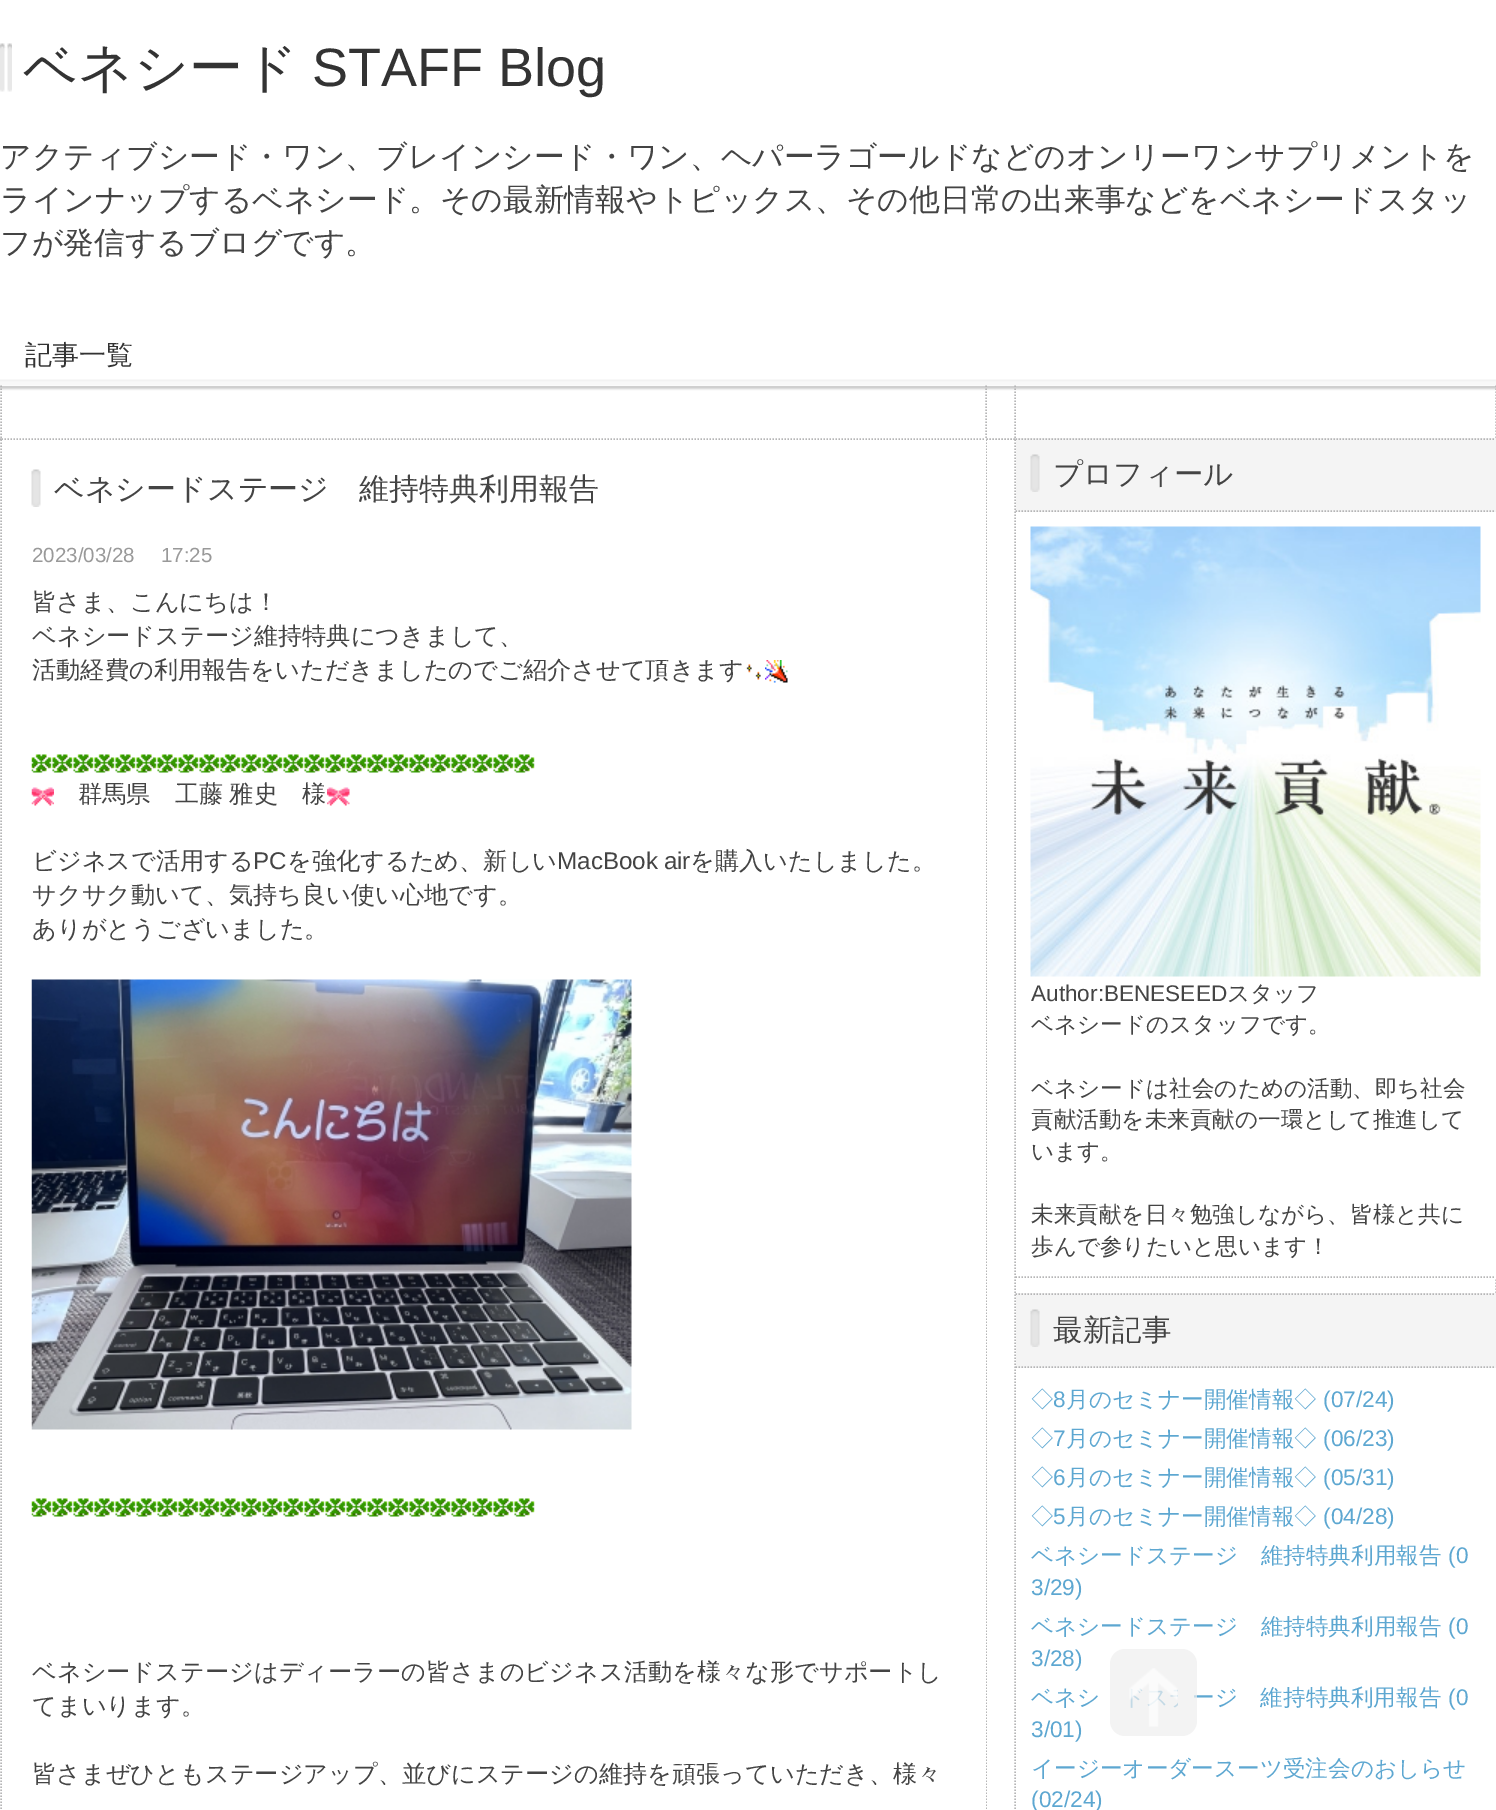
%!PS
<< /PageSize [1496 1810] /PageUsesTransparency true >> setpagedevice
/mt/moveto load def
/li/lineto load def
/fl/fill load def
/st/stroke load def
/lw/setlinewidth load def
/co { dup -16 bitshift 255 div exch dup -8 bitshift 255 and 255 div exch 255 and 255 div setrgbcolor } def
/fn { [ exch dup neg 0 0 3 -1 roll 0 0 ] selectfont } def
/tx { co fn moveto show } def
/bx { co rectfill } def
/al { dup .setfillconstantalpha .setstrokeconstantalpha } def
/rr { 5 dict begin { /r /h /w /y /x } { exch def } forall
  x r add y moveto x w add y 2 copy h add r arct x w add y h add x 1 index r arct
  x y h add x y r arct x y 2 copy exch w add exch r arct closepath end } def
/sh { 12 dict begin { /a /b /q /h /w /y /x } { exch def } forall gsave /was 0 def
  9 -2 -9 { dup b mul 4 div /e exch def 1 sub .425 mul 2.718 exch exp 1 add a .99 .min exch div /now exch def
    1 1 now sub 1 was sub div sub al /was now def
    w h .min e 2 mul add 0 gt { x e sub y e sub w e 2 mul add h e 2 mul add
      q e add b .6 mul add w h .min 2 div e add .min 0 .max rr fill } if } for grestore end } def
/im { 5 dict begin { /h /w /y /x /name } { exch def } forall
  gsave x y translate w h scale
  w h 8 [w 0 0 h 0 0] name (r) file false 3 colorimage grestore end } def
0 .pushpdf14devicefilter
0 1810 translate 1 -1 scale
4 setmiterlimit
0 0 1496 1810 16#FFFFFF bx
16#CCCCCC co
0 2 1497 387 0 1 1 sh
0 0 1496 386 16#FFFFFF bx
(media/1.raw) 0 379 1496 7 im
0 386 1496 2 16#CFCFCF bx
(media/2.raw) 0 43 12 49 im
16#B5B5B6 co
1.5 lw
[1.5 1.5] 0 setdash
0 439 mt 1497 439 li st
986 385.5 mt 986 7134 li st
1 385.5 mt 1 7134 li st
3 438 983 1371 16#FFFFFF bx
16#B5B5B6 co
1.5 439 mt 985.5 439 li st
(media/3.raw) 31 469 10 38 im
(media/4.raw) 746 664 15 16 im
(media/5.raw) 765 660 23 23 im
(media/6.raw) 31 754 21 19 im
(media/7.raw) 52 754 21 19 im
(media/7.raw) 73 754 21 19 im
(media/7.raw) 94 754 21 19 im
(media/7.raw) 115 754 21 19 im
(media/7.raw) 136 754 21 19 im
(media/7.raw) 157 754 21 19 im
(media/7.raw) 178 754 21 19 im
(media/7.raw) 199 754 21 19 im
(media/7.raw) 220 754 21 19 im
(media/7.raw) 241 754 21 19 im
(media/8.raw) 262 754 21 19 im
(media/9.raw) 283 754 21 19 im
(media/7.raw) 304 754 21 19 im
(media/7.raw) 325 754 21 19 im
(media/7.raw) 346 754 21 19 im
(media/9.raw) 367 754 21 19 im
(media/9.raw) 388 754 21 19 im
(media/9.raw) 409 754 21 19 im
(media/9.raw) 430 754 21 19 im
(media/7.raw) 451 754 21 19 im
(media/7.raw) 472 754 21 19 im
(media/7.raw) 493 754 21 19 im
(media/8.raw) 514 754 21 19 im
(media/10.raw) 31 787 23 19 im
(media/11.raw) 327 787 23 19 im
(media/12.raw) 31 979 601 451 im
(media/6.raw) 31 1498 21 19 im
(media/7.raw) 52 1498 21 19 im
(media/7.raw) 73 1498 21 19 im
(media/7.raw) 94 1498 21 19 im
(media/7.raw) 115 1498 21 19 im
(media/7.raw) 136 1498 21 19 im
(media/7.raw) 157 1498 21 19 im
(media/7.raw) 178 1498 21 19 im
(media/7.raw) 199 1498 21 19 im
(media/7.raw) 220 1498 21 19 im
(media/7.raw) 241 1498 21 19 im
(media/8.raw) 262 1498 21 19 im
(media/9.raw) 283 1498 21 19 im
(media/7.raw) 304 1498 21 19 im
(media/7.raw) 325 1498 21 19 im
(media/7.raw) 346 1498 21 19 im
(media/9.raw) 367 1498 21 19 im
(media/9.raw) 388 1498 21 19 im
(media/9.raw) 409 1498 21 19 im
(media/9.raw) 430 1498 21 19 im
(media/7.raw) 451 1498 21 19 im
(media/7.raw) 472 1498 21 19 im
(media/7.raw) 493 1498 21 19 im
(media/8.raw) 514 1498 21 19 im
1496 385.5 mt 1496 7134 li st
1015 385.5 mt 1015 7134 li st
1495 512 1 766 16#FFFFFF bx
16#B5B5B6 co
1015.5 1277 mt 1495.5 1277 li st
1016 438 480 74 16#F4F4F4 bx
(media/13.raw) 1030 454 10 38 im
16#B5B5B6 co
1015.5 439 mt 1495.5 439 li st
1015.5 511 mt 1495.5 511 li st
(media/14.raw) 1030 526 451 451 im
1495 1369 1 440 16#FFFFFF bx
1016 1293 480 75 16#F4F4F4 bx
(media/13.raw) 1030 1309 10 38 im
16#B5B5B6 co
1015.5 1294 mt 1495.5 1294 li st
1015.5 1367 mt 1495.5 1367 li st
(ベネシード) 23 86 /WenQuanYiZenHei-Medium 54 16#333333 tx
(STAFF Blog) 312 86 /LiberationSans-Regular 54 16#333333 tx
(アクティブシード・ワン、ブレインシード・ワン、ヘパーラゴールドなどのオンリーワンサプリメントを) 0 167 /WenQuanYiZenHei-Medium 30.8 16#444444 tx
(ラインナップするベネシード。その最新情報やトピックス、その他日常の出来事などをベネシードスタッ) 0 210 /WenQuanYiZenHei-Medium 30.8 16#444444 tx
(フが発信するブログです。) 0 253 /WenQuanYiZenHei-Medium 30.8 16#444444 tx
(記事一覧) 25 364 /WenQuanYiZenHei-Medium 27 16#333333 tx
(ベネシードステージ　維持特典利用報告) 54 499 /WenQuanYiZenHei-Medium 30 16#444444 tx
(2023/03/28) 32 562 /LiberationSans-Regular 20.5 16#999999 tx
(17:25) 161 562 /LiberationSans-Regular 20.5 16#999999 tx
(皆さま、こんにちは！) 32 610 /WenQuanYiZenHei-Medium 24.2 16#444444 tx
(ベネシードステージ維持特典につきまして、) 32 644 /WenQuanYiZenHei-Medium 24.2 16#444444 tx
(活動経費の利用報告をいただきましたのでご紹介させて頂きます) 32 678 /WenQuanYiZenHei-Medium 24.2 16#444444 tx
78 802 mt -1 0 32 (群馬県　工藤 雅史　様) widthshow
(ビジネスで活用する) 32 869 /WenQuanYiZenHei-Medium 24.2 16#444444 tx
(PC) 253 869 /LiberationSans-Regular 24.2 16#444444 tx
(を強化するため、新しい) 287 869 /WenQuanYiZenHei-Medium 24.2 16#444444 tx
/LiberationSans-Regular 24.2 fn
557 869 mt -1 0 32 (MacBook air) widthshow
(を購入いたしました。) 690 869 /WenQuanYiZenHei-Medium 24.2 16#444444 tx
(サクサク動いて、気持ち良い使い心地です。) 32 903 /WenQuanYiZenHei-Medium 24.2 16#444444 tx
(ありがとうございました。) 32 937 /WenQuanYiZenHei-Medium 24.2 16#444444 tx
(ベネシードステージはディーラーの皆さまのビジネス活動を様々な形でサポートし) 32 1680 /WenQuanYiZenHei-Medium 24.2 16#444444 tx
(てまいります。) 32 1714 /WenQuanYiZenHei-Medium 24.2 16#444444 tx
(皆さまぜひともステージアップ、並びにステージの維持を頑張っていただき、様々) 32 1782 /WenQuanYiZenHei-Medium 24.2 16#444444 tx
(プロフィール) 1053 484 /WenQuanYiZenHei-Medium 29.5 16#444444 tx
(Author:BENESEED) 1031 1001 /LiberationSans-Regular 22.6 16#444444 tx
(スタッフ) 1227 1001 /WenQuanYiZenHei-Medium 22.6 16#444444 tx
(ベネシードのスタッフです。) 1031 1032 /WenQuanYiZenHei-Medium 22.6 16#444444 tx
(ベネシードは社会のための活動、即ち社会) 1031 1096 /WenQuanYiZenHei-Medium 22.6 16#444444 tx
(貢献活動を未来貢献の一環として推進して) 1031 1127 /WenQuanYiZenHei-Medium 22.6 16#444444 tx
(います。) 1031 1159 /WenQuanYiZenHei-Medium 22.6 16#444444 tx
(未来貢献を日々勉強しながら、皆様と共に) 1031 1222 /WenQuanYiZenHei-Medium 22.6 16#444444 tx
(歩んで参りたいと思います！) 1031 1254 /WenQuanYiZenHei-Medium 22.6 16#444444 tx
(最新記事) 1053 1340 /WenQuanYiZenHei-Medium 29.5 16#444444 tx
(◇) 1031 1407 /WenQuanYiZenHei-Medium 22.6 16#5DA7D1 tx
(8) 1053 1407 /LiberationSans-Regular 22.6 16#5DA7D1 tx
(月のセミナー開催情報◇) 1066 1407 /WenQuanYiZenHei-Medium 22.6 16#5DA7D1 tx
(\(07/24\)) 1323 1407 /LiberationSans-Regular 22.6 16#5DA7D1 tx
(◇) 1031 1446 /WenQuanYiZenHei-Medium 22.6 16#5DA7D1 tx
(7) 1053 1446 /LiberationSans-Regular 22.6 16#5DA7D1 tx
(月のセミナー開催情報◇) 1066 1446 /WenQuanYiZenHei-Medium 22.6 16#5DA7D1 tx
(\(06/23\)) 1323 1446 /LiberationSans-Regular 22.6 16#5DA7D1 tx
(◇) 1031 1485 /WenQuanYiZenHei-Medium 22.6 16#5DA7D1 tx
(6) 1053 1485 /LiberationSans-Regular 22.6 16#5DA7D1 tx
(月のセミナー開催情報◇) 1066 1485 /WenQuanYiZenHei-Medium 22.6 16#5DA7D1 tx
(\(05/31\)) 1323 1485 /LiberationSans-Regular 22.6 16#5DA7D1 tx
(◇) 1031 1524 /WenQuanYiZenHei-Medium 22.6 16#5DA7D1 tx
(5) 1053 1524 /LiberationSans-Regular 22.6 16#5DA7D1 tx
(月のセミナー開催情報◇) 1066 1524 /WenQuanYiZenHei-Medium 22.6 16#5DA7D1 tx
(\(04/28\)) 1323 1524 /LiberationSans-Regular 22.6 16#5DA7D1 tx
(ベネシードステージ　維持特典利用報告) 1031 1563 /WenQuanYiZenHei-Medium 22.6 16#5DA7D1 tx
(\(0) 1448 1563 /LiberationSans-Regular 22.6 16#5DA7D1 tx
(3/29\)) 1031 1595 /LiberationSans-Regular 22.6 16#5DA7D1 tx
(ベネシードステージ　維持特典利用報告) 1031 1634 /WenQuanYiZenHei-Medium 22.6 16#5DA7D1 tx
(\(0) 1448 1634 /LiberationSans-Regular 22.6 16#5DA7D1 tx
(3/28\)) 1031 1666 /LiberationSans-Regular 22.6 16#5DA7D1 tx
(ベネシ) 1031 1705 /WenQuanYiZenHei-Medium 22.6 16#5DA7D1 tx
(ージ　維持特典利用報告) 1192 1705 /WenQuanYiZenHei-Medium 22.6 16#5DA7D1 tx
(\(0) 1448 1705 /LiberationSans-Regular 22.6 16#5DA7D1 tx
(3/01\)) 1031 1737 /LiberationSans-Regular 22.6 16#5DA7D1 tx
(イージーオーダースーツ受注会のおしらせ) 1031 1776 /WenQuanYiZenHei-Medium 22.6 16#5DA7D1 tx
(\(02/24\)) 1031 1807 /LiberationSans-Regular 22.6 16#5DA7D1 tx
0.7 al
16#EEEEEE co
1110 1649 87 87 15 rr fl
1 al
(media/15.raw) 1129 1668 49 59 im
.poppdf14devicefilter showpage
